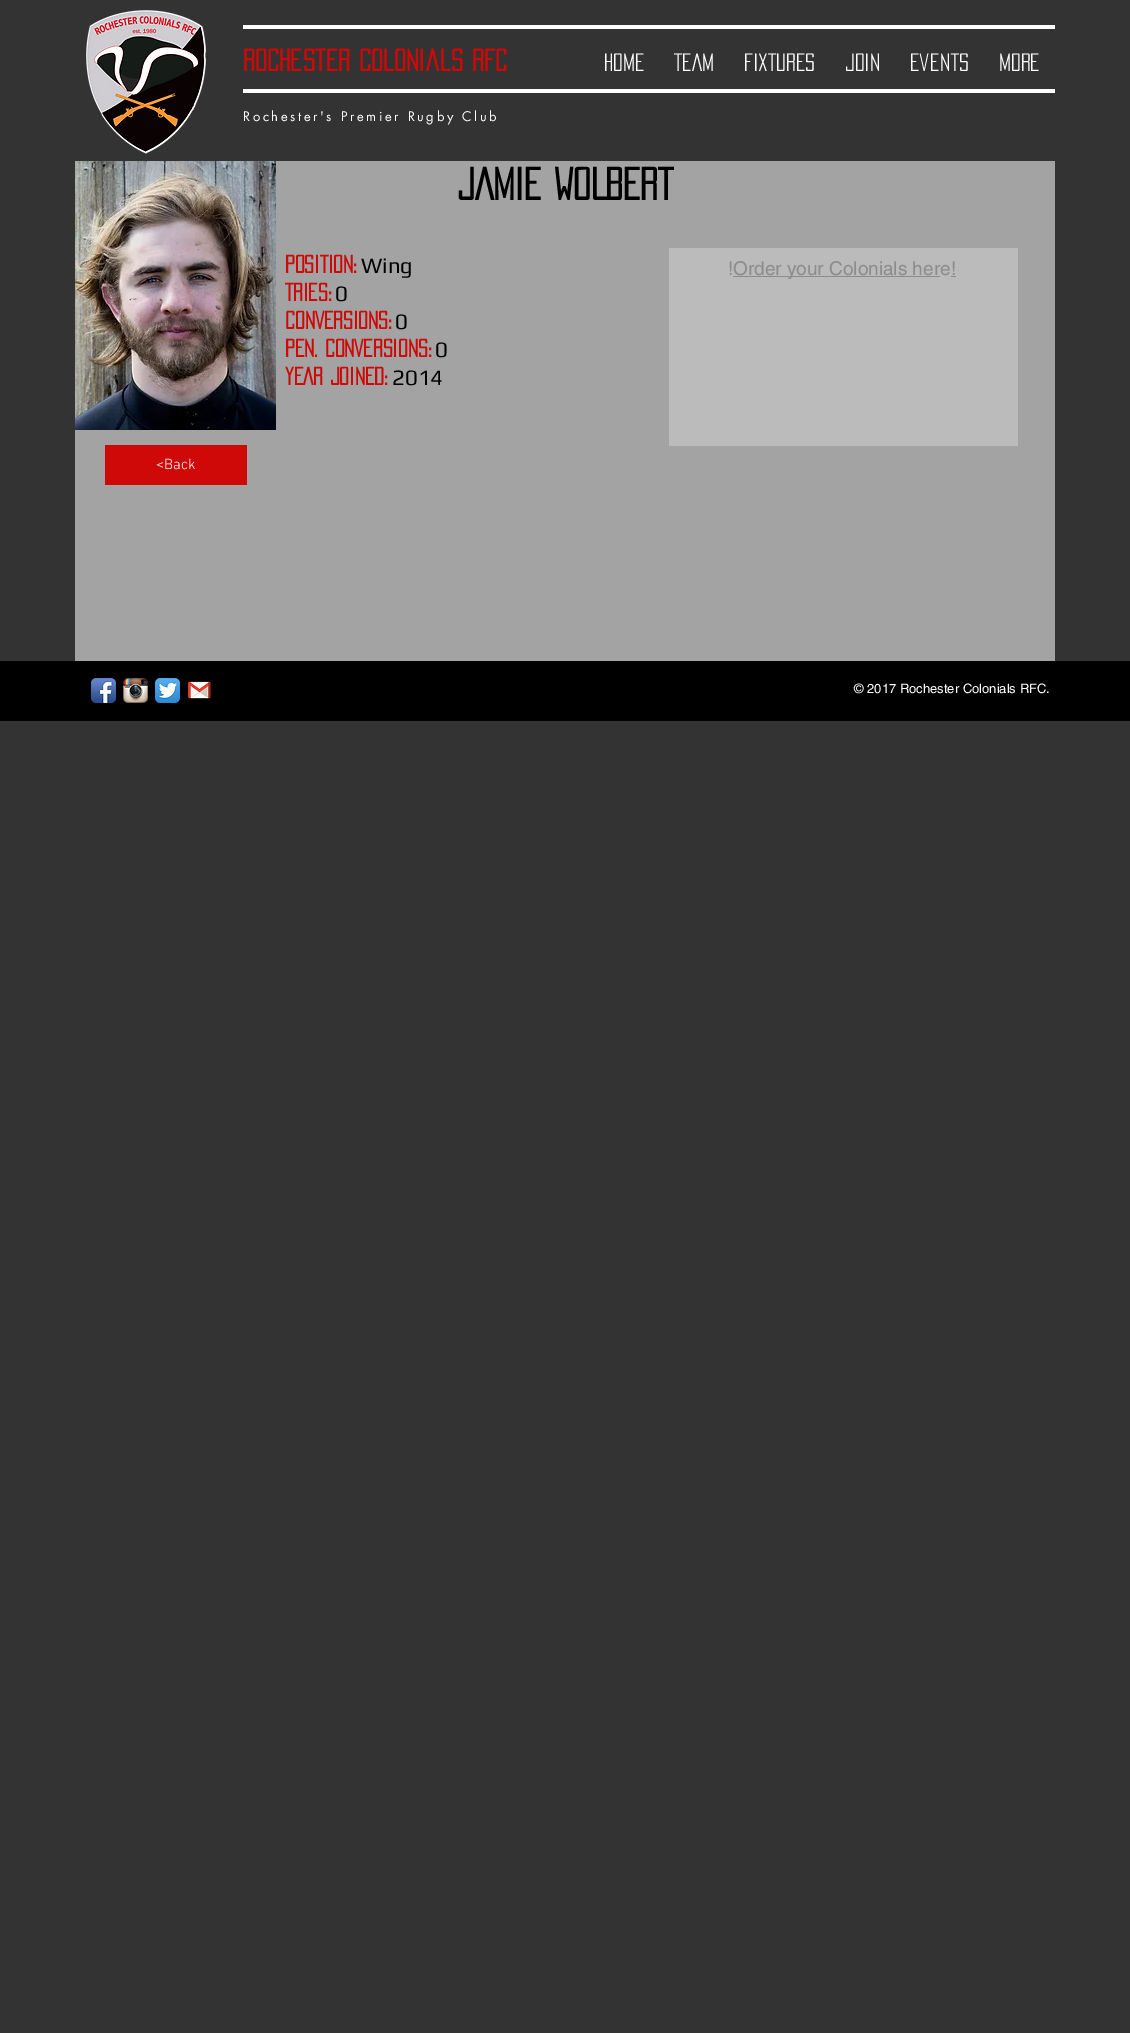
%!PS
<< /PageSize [1130 2033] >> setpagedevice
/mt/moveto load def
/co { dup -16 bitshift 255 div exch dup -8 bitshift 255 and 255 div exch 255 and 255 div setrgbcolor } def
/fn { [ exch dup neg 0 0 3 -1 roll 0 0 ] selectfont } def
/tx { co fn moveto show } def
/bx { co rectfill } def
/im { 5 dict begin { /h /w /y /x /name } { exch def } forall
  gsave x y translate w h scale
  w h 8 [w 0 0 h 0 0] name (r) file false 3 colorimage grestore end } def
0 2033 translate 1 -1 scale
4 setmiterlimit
0 0 1130 2033 16#333333 bx
(media/1.raw) 86 10 120 144 im
243 25 812 4 16#FFFFFF bx
243 89 812 4 16#FFFFFF bx
75 161 980 500 16#A3A3A3 bx
669 248 349 198 16#BBBBBB bx
733 276 207 1 16#8C8C8C bx
951 276 5 1 16#8C8C8C bx
(media/2.raw) 75 161 201 269 im
105 445 142 40 16#CF0808 bx
0 661 1130 60 16#000000 bx
(media/3.raw) 91 678 25 25 im
(media/4.raw) 123 678 25 25 im
(media/5.raw) 155 678 25 25 im
(media/6.raw) 188 681 23 18 im
(Rochester Colonials RFC) 243 71 /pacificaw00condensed-Bold 27 16#CF0808 tx
(HOME) 604 71 /pacificaw00condensed-Regular 22 16#FFFFFF tx
(TEAM) 674 71 /pacificaw00condensed-Regular 22 16#FFFFFF tx
(FIXTURES) 744 71 /pacificaw00condensed-Regular 22 16#FFFFFF tx
(JOIN) 845 71 /pacificaw00condensed-Regular 22 16#FFFFFF tx
(Events) 910 71 /pacificaw00condensed-Regular 22 16#FFFFFF tx
(More) 999 71 /pacificaw00condensed-Regular 22 16#FFFFFF tx
/futura-Regular 13 fn
243 121 mt 2.6 0 (Rochester's Premier Rugby Club) ashow
(!) 728 275 /helvetica-Regular 19 16#8C8C8C tx
(Order your Colonials here) 733 275 /helvetica-Regular 19 16#8C8C8C tx
(!) 951 275 /helvetica-Regular 19 16#8C8C8C tx
(JAMIE WOLBERT) 457 200 /pacificaw00condensed-Bold 40 16#000000 tx
(POSITION:) 285 273 /pacificaw00condensed-Bold 22 16#CF0808 tx
(Wing) 361 273 /Play-Regular 22 16#000000 tx
(TRIES:) 285 301 /pacificaw00condensed-Bold 22 16#CF0808 tx
(0) 335 301 /Play-Regular 22 16#000000 tx
(CONVERSIONS:) 285 329 /pacificaw00condensed-Bold 22 16#CF0808 tx
(0) 395 329 /Play-Regular 22 16#000000 tx
(PEN. CONVERSIONS:) 285 357 /pacificaw00condensed-Bold 22 16#CF0808 tx
(0) 435 357 /Play-Regular 22 16#000000 tx
(YEAR JOINED:) 285 385 /pacificaw00condensed-Bold 22 16#CF0808 tx
(2014) 392 385 /Play-Regular 22 16#000000 tx
(<Back) 156 469 /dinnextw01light-Light 15 16#FFFFFF tx
(© 2017 Rochester Colonials RFC.) 854 693 /helvetica-Regular 13 16#FFFFFF tx
showpage
